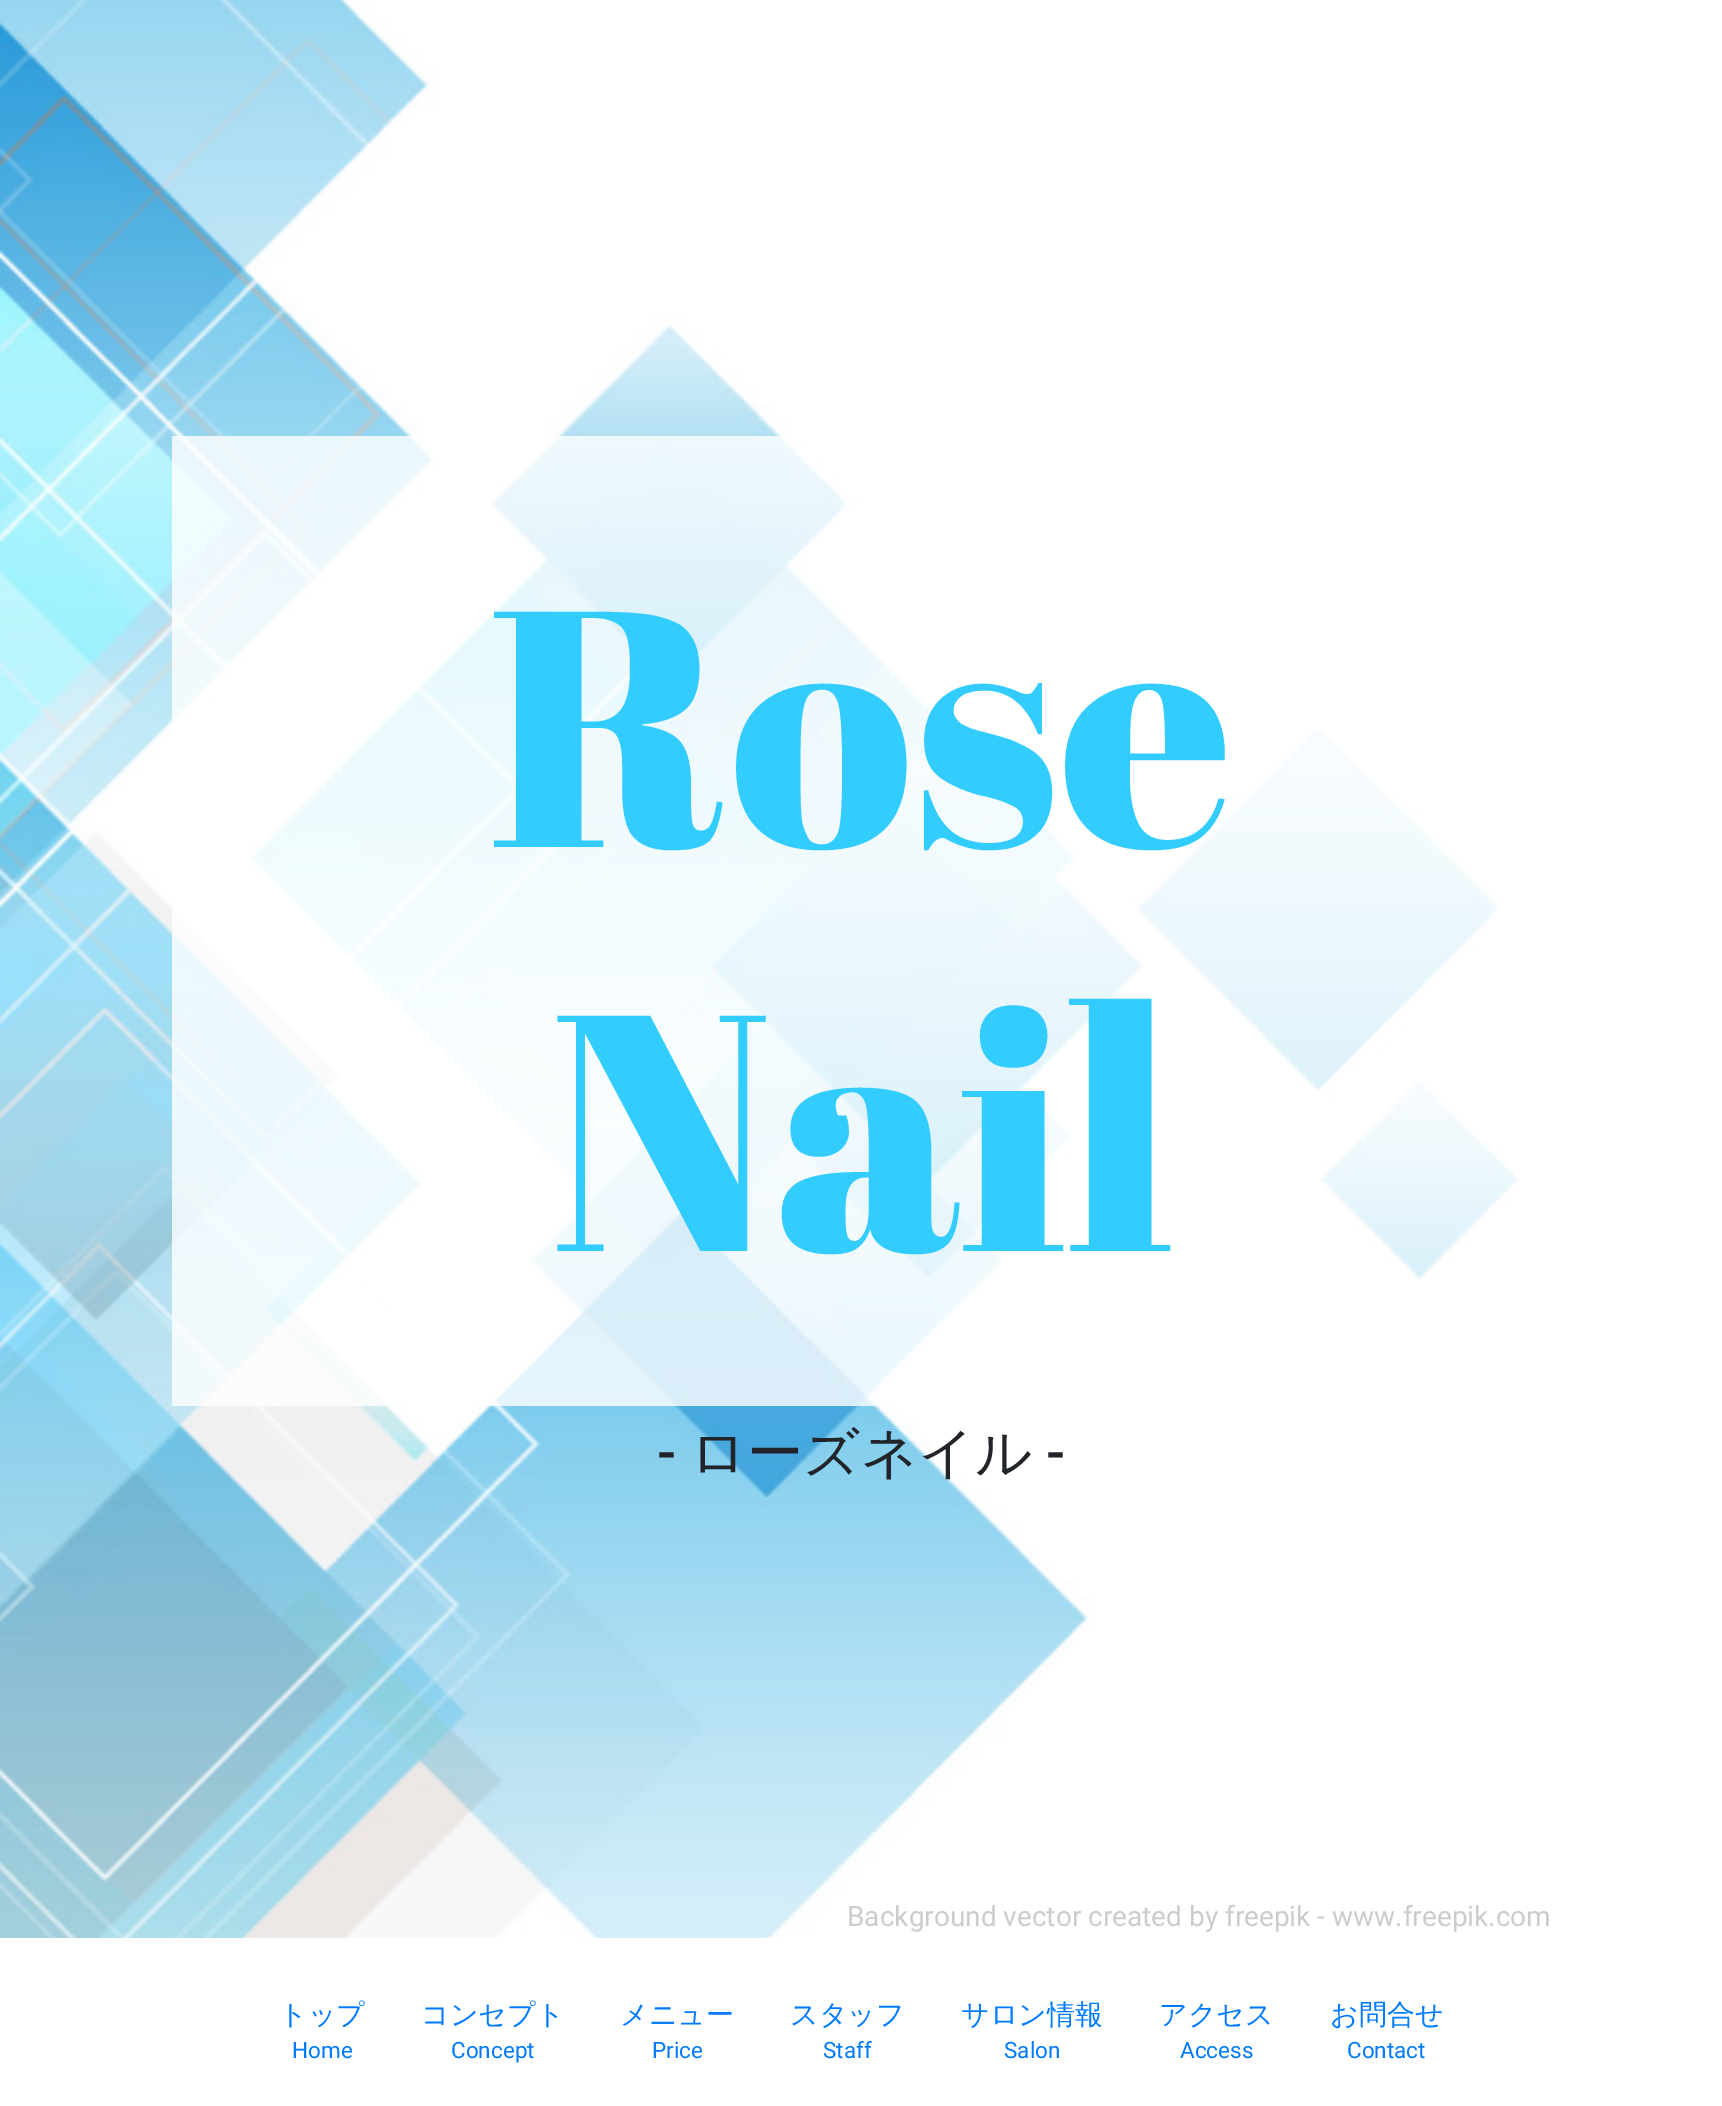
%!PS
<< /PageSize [1722 2106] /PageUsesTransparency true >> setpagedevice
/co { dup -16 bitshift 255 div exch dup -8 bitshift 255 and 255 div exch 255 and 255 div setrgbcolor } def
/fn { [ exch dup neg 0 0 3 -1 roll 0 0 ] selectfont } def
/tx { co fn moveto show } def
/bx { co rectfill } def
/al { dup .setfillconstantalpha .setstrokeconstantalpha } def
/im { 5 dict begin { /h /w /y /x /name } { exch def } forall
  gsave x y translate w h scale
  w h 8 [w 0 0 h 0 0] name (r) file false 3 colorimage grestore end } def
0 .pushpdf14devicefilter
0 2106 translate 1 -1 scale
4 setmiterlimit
0 0 1722 2106 16#FFFFFF bx
(media/1.raw) 0 0 1527 1938 im
0.8 al
172 436 1355 970 16#FFFFFF bx
1 al
(Rose) 489 847 /AbrilFatface-Regular 337 16#33CCFF tx
(Nail) 549 1251 /AbrilFatface-Regular 337 16#33CCFF tx
(-) 657 1472 /Roboto-Medium 56 16#212529 tx
(ローズネイル) 690 1472 /WenQuanYiZenHei-Medium 56 16#212529 tx
(-) 1046 1472 /Roboto-Medium 56 16#212529 tx
(Background vector created by freepik - www.freepik.com) 847 1926 /Roboto-Regular 28 16#CCCCCC tx
(トップ) 279 2024 /WenQuanYiZenHei-Medium 28 16#007BFF tx
(Home) 292 2058 /Roboto-Regular 22.5 16#007BFF tx
(コンセプト) 421 2024 /WenQuanYiZenHei-Medium 28 16#007BFF tx
(Concept) 451 2058 /Roboto-Regular 22.5 16#007BFF tx
(メニュー) 620 2024 /WenQuanYiZenHei-Medium 28 16#007BFF tx
(Price) 652 2058 /Roboto-Regular 22.5 16#007BFF tx
(スタッフ) 790 2024 /WenQuanYiZenHei-Medium 28 16#007BFF tx
(Staff) 823 2058 /Roboto-Regular 22.5 16#007BFF tx
(サロン情報) 961 2024 /WenQuanYiZenHei-Medium 28 16#007BFF tx
(Salon) 1004 2058 /Roboto-Regular 22.5 16#007BFF tx
(アクセス) 1159 2024 /WenQuanYiZenHei-Medium 28 16#007BFF tx
(Access) 1180 2058 /Roboto-Regular 22.5 16#007BFF tx
(お問合せ) 1330 2024 /WenQuanYiZenHei-Medium 28 16#007BFF tx
(Contact) 1347 2058 /Roboto-Regular 22.5 16#007BFF tx
.poppdf14devicefilter showpage
